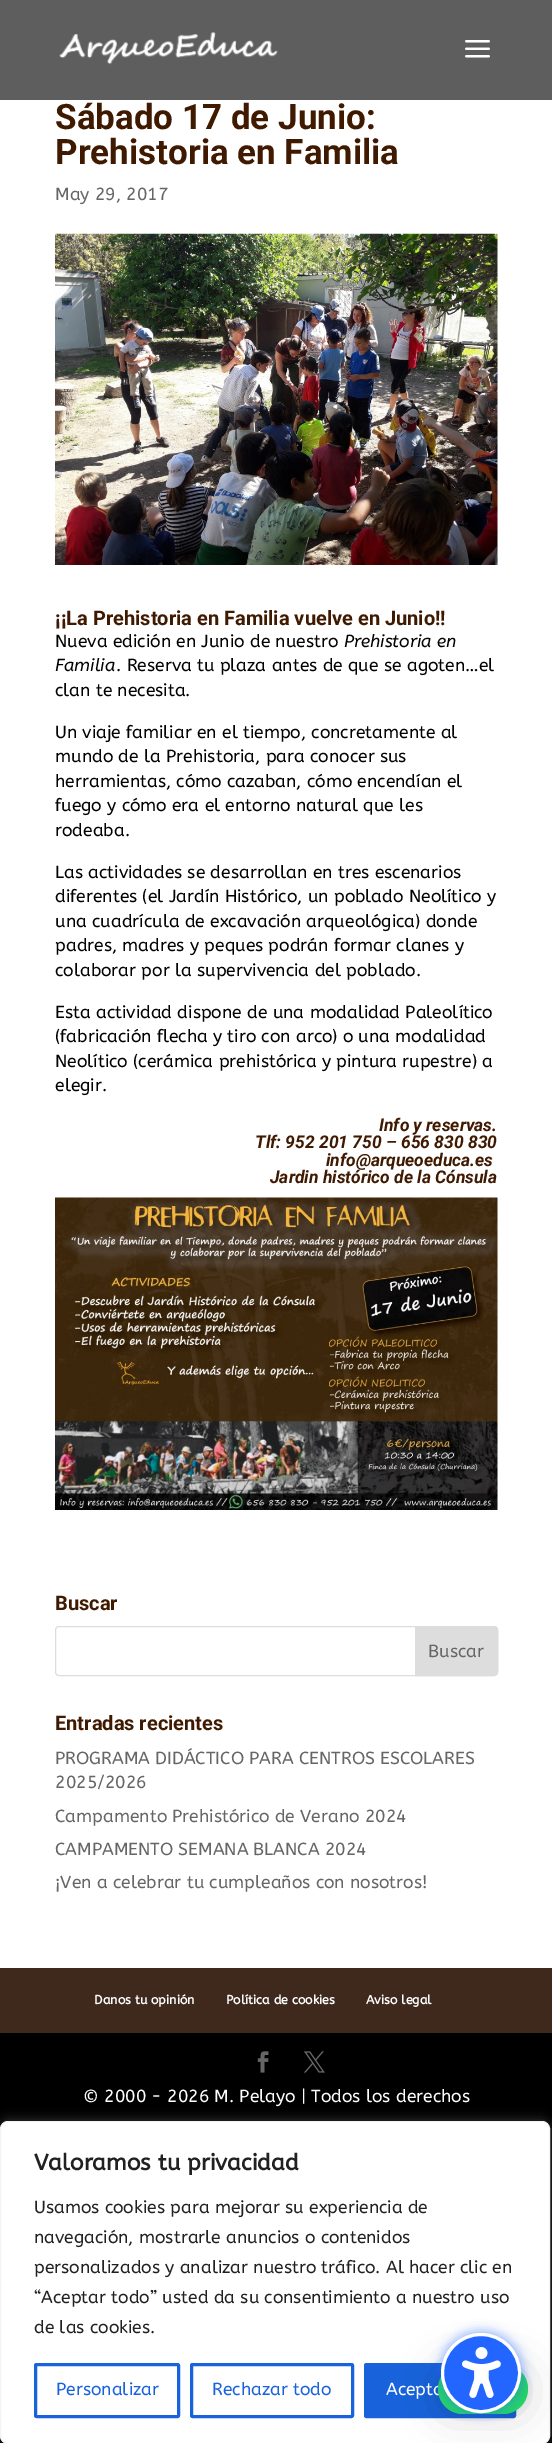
%!PS
<< /PageSize [552 2443] /PageUsesTransparency true >> setpagedevice
/mt/moveto load def
/li/lineto load def
/ct/curveto load def
/cp/closepath load def
/fl/fill load def
/st/stroke load def
/gs/gsave load def
/gr/grestore load def
/lw/setlinewidth load def
/co { dup -16 bitshift 255 div exch dup -8 bitshift 255 and 255 div exch 255 and 255 div setrgbcolor } def
/fn { [ exch dup neg 0 0 3 -1 roll 0 0 ] selectfont } def
/tx { co fn moveto show } def
/bx { co rectfill } def
/al { dup .setfillconstantalpha .setstrokeconstantalpha } def
/ci { newpath 0 360 arc closepath } def
/rr { 5 dict begin { /r /h /w /y /x } { exch def } forall
  x r add y moveto x w add y 2 copy h add r arct x w add y h add x 1 index r arct
  x y h add x y r arct x y 2 copy exch w add exch r arct closepath end } def
/sh { 12 dict begin { /a /b /q /h /w /y /x } { exch def } forall gsave /was 0 def
  9 -2 -9 { dup b mul 4 div /e exch def 1 sub .425 mul 2.718 exch exp 1 add a .99 .min exch div /now exch def
    1 1 now sub 1 was sub div sub al /was now def
    w h .min e 2 mul add 0 gt { x e sub y e sub w e 2 mul add h e 2 mul add
      q e add b .6 mul add w h .min 2 div e add .min 0 .max rr fill } if } for grestore end } def
/im { 5 dict begin { /h /w /y /x /name } { exch def } forall
  gsave x y translate w h scale
  w h 8 [w 0 0 h 0 0] name (r) file false 3 colorimage grestore end } def
0 .pushpdf14devicefilter
0 2443 translate 1 -1 scale
4 setmiterlimit
0 0 552 2443 16#000000 bx
0 0 552 100 16#5E5E5E bx
(media/1.raw) 59 32 219 33 im
(media/2.raw) 465 40 25 18 im
0 100 552 1868 16#FFFFFF bx
(media/3.raw) 55 233 443 332 im
(media/4.raw) 55 1197 443 313 im
16#DDDDDD co
55.5 1626.5 442 49 3.5 rr st
415.5 1626.5 mt 494 1626.5 li 496 1626.5 497.5 1628 497.5 1630 ct 497.5 1672 li 497.5 1674 496 1675.5 494 1675.5 ct 415.5 1675.5 li cp gs fl gr
st
0 1968 552 65 16#3F291D bx
(media/5.raw) 257 2051 12 22 im
(media/6.raw) 304 2051 21 22 im
16#ACABAB co
0 2120 550 323 8 6 .3 sh
16#FFFFFF co
.5 2121.5 549 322 7.5 rr gs fl gr
16#F4F4F4 co
st
16#1863DC co
3 lw
35.5 2364.5 143 52 1 rr st
191.5 2364.5 161 52 1 rr st
365.5 2364.5 149 52 1 rr gs fl gr
st
16#000000 co
438 2366 90 50 25 20 .16 sh
438 2365 90 50 25 4 .06 sh
(Sábado 17 de Junio:) 55 129 /Roboto-Bold 35 16#3F1900 tx
(Prehistoria en Familia) 55 164 /Roboto-Bold 35 16#3F1900 tx
(May 29, 2017) 55 200 /ABeeZee-Regular 17.5 16#666666 tx
(¡¡La Prehistoria en Familia vuelve en Junio!!) 55 625 /Roboto-Bold 20 16#3F1900 tx
(Nueva edición en Junio de nuestro) 55 647 /ABeeZee-Regular 17.5 16#000000 tx
(Prehistoria en) 344 647 /ABeeZee-Italic 17.5 16#000000 tx
(Familia) 55 671 /ABeeZee-Italic 17.5 16#000000 tx
(. Reserva tu plaza antes de que se agoten…el) 116 671 /ABeeZee-Regular 17.5 16#000000 tx
(clan te necesita.) 55 696 /ABeeZee-Regular 17.5 16#000000 tx
(Un viaje familiar en el tiempo, concretamente al) 55 738 /ABeeZee-Regular 17.5 16#000000 tx
(mundo de la Prehistoria, para conocer sus) 55 762 /ABeeZee-Regular 17.5 16#000000 tx
(herramientas, cómo cazaban, cómo encendían el) 55 787 /ABeeZee-Regular 17.5 16#000000 tx
(fuego y cómo era el entorno natural que les) 55 811 /ABeeZee-Regular 17.5 16#000000 tx
(rodeaba.) 55 836 /ABeeZee-Regular 17.5 16#000000 tx
(Las actividades se desarrollan en tres escenarios) 55 878 /ABeeZee-Regular 17.5 16#000000 tx
(diferentes \(el Jardín Histórico, un poblado Neolítico y) 55 902 /ABeeZee-Regular 17.5 16#000000 tx
(una cuadrícula de excavación arqueológica\) donde) 55 927 /ABeeZee-Regular 17.5 16#000000 tx
(padres, madres y peques podrán formar clanes y) 55 951 /ABeeZee-Regular 17.5 16#000000 tx
(colaborar por la supervivencia del poblado.) 55 976 /ABeeZee-Regular 17.5 16#000000 tx
(Esta actividad dispone de una modalidad Paleolítico) 55 1018 /ABeeZee-Regular 17.5 16#000000 tx
(\(fabricación flecha y tiro con arco\) o una modalidad) 55 1042 /ABeeZee-Regular 17.5 16#000000 tx
(Neolítico \(cerámica prehistórica y pintura rupestre\) a) 55 1067 /ABeeZee-Regular 17.5 16#000000 tx
(elegir.) 55 1091 /ABeeZee-Regular 17.5 16#000000 tx
(Info y reservas.) 379 1131 /Roboto-BoldItalic 17.5 16#3F1900 tx
(Tlf: 952 201 750 – 656 830 830) 255 1148 /Roboto-BoldItalic 17.5 16#3F1900 tx
(info@arqueoeduca.es) 326 1166 /Roboto-BoldItalic 17.5 16#3F1900 tx
(Jardin histórico de la Cónsula) 270 1183 /Roboto-BoldItalic 17.5 16#3F1900 tx
(Buscar) 55 1610 /Roboto-Bold 20 16#3F1900 tx
(Buscar) 428 1657 /ABeeZee-Regular 17.5 16#666666 tx
(Entradas recientes) 55 1730 /Roboto-Bold 20 16#3F1900 tx
(PROGRAMA DIDÁCTICO PARA CENTROS ESCOLARES) 55 1764 /ABeeZee-Regular 17.5 16#666666 tx
(2025/2026) 55 1788 /ABeeZee-Regular 17.5 16#666666 tx
(Campamento Prehistórico de Verano 2024) 55 1822 /ABeeZee-Regular 17.5 16#666666 tx
(CAMPAMENTO SEMANA BLANCA 2024) 55 1855 /ABeeZee-Regular 17.5 16#666666 tx
(¡Ven a celebrar tu cumpleaños con nosotros!) 55 1888 /ABeeZee-Regular 17.5 16#666666 tx
(Danos tu opinión) 94 2004 /ABeeZee-Bold 12.5 16#FFFFFF tx
(Política de cookies) 226 2004 /ABeeZee-Bold 12.5 16#FFFFFF tx
(Aviso legal) 366 2004 /ABeeZee-Bold 12.5 16#FFFFFF tx
(© 2000 - 2026 M. Pelayo | Todos los derechos) 83 2102 /ABeeZee-Regular 17.5 16#FFFFFF tx
(Valoramos tu privacidad) 34 2170 /ABeeZee-Bold 22.5 16#212121 tx
(Usamos cookies para mejorar su experiencia de) 34 2213 /ABeeZee-Regular 17.5 16#212121 tx
(navegación, mostrarle anuncios o contenidos) 34 2243 /ABeeZee-Regular 17.5 16#212121 tx
(personalizados y analizar nuestro tráfico. Al hacer clic en) 34 2273 /ABeeZee-Regular 17.5 16#212121 tx
(“Aceptar todo” usted da su consentimiento a nuestro uso) 34 2303 /ABeeZee-Regular 17.5 16#212121 tx
(de las cookies.) 34 2333 /ABeeZee-Regular 17.5 16#212121 tx
(Personalizar) 56 2395 /ABeeZee-Regular 17.5 16#1863DC tx
(Rechazar todo) 212 2395 /ABeeZee-Regular 17.5 16#1863DC tx
(Acepta) 386 2395 /ABeeZee-Regular 17.5 16#FFFFFF tx
16#25D366 co
438 2364 90 50 25 rr fl
16#2266FF co
439 2330 85 85 42.5 5 .4 sh
481 2373 38.5 ci gs fl gr
16#FFFFFF co
st
(media/7.raw) 462 2347 39 51 im
.poppdf14devicefilter showpage
